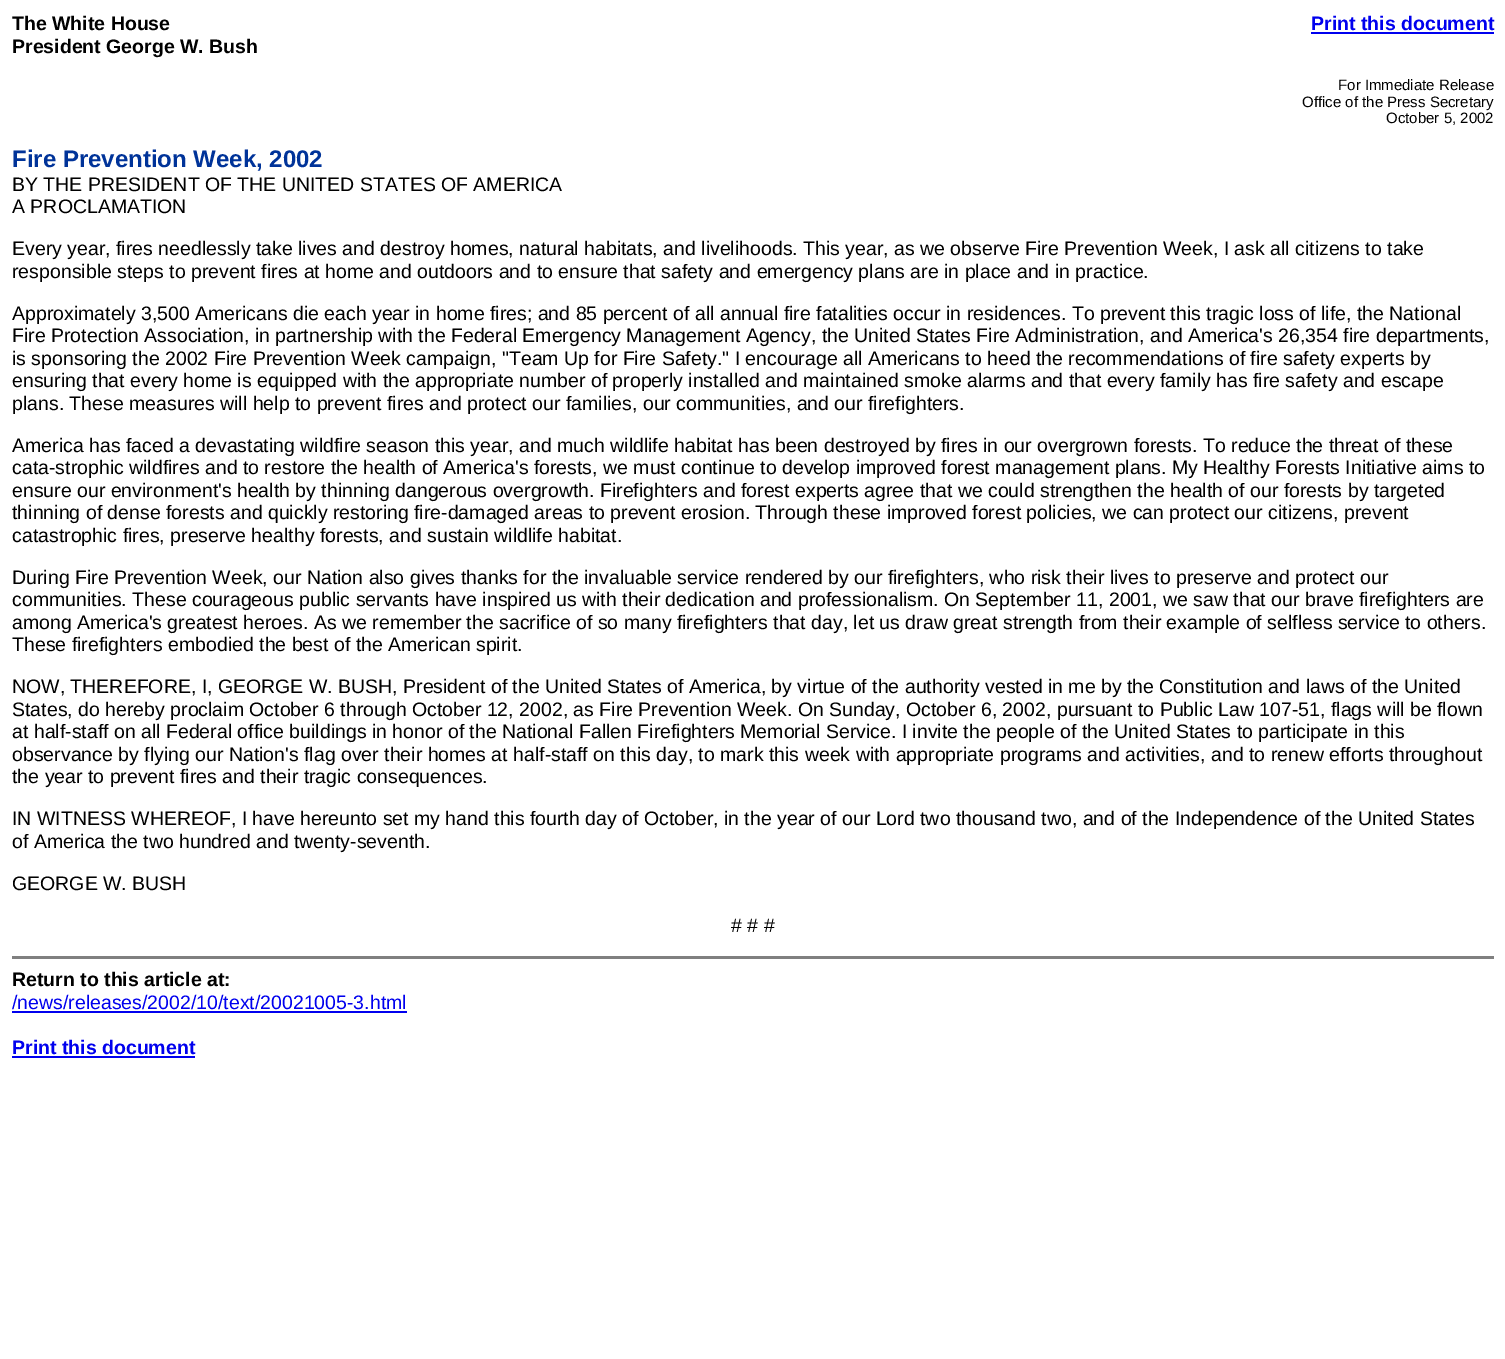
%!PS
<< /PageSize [1505 1359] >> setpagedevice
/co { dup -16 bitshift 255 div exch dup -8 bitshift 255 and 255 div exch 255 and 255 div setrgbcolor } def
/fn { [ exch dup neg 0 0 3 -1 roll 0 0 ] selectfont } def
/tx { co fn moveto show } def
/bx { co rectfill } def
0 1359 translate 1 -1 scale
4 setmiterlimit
0 0 1505 1359 16#FFFFFF bx
1311 32 183 2 16#0000EE bx
12 956 1482 3 16#808080 bx
12 1011 395 2 16#0000EE bx
12 1056 183 2 16#0000EE bx
(The White House) 12 30 /LiberationSans-Bold 19.5 16#000000 tx
(President George W. Bush) 12 53 /LiberationSans-Bold 19.5 16#000000 tx
(Print this document) 1311 30 /LiberationSans-Bold 19.5 16#0000EE tx
(For Immediate Release) 1338 90 /LiberationSans-Regular 15 16#000000 tx
(Office of the Press Secretary) 1302 107 /LiberationSans-Regular 15 16#000000 tx
(October 5, 2002) 1386 123 /LiberationSans-Regular 15 16#000000 tx
(Fire Prevention Week, 2002) 12 167 /LiberationSans-Bold 24 16#003399 tx
(BY THE PRESIDENT OF THE UNITED STATES OF AMERICA) 12 191 /LiberationSans-Regular 19.5 16#000000 tx
(A PROCLAMATION) 12 213 /LiberationSans-Regular 19.5 16#000000 tx
(Every year, fires needlessly take lives and destroy homes, natural habitats, and livelihoods. This year, as we observe Fire Prevention Week, I ask all citizens to take) 12 255 /LiberationSans-Regular 19.5 16#000000 tx
(responsible steps to prevent fires at home and outdoors and to ensure that safety and emergency plans are in place and in practice.) 12 278 /LiberationSans-Regular 19.5 16#000000 tx
(Approximately 3,500 Americans die each year in home fires; and 85 percent of all annual fire fatalities occur in residences. To prevent this tragic loss of life, the National) 12 320 /LiberationSans-Regular 19.5 16#000000 tx
(Fire Protection Association, in partnership with the Federal Emergency Management Agency, the United States Fire Administration, and America's 26,354 fire departments,) 12 342 /LiberationSans-Regular 19.5 16#000000 tx
(is sponsoring the 2002 Fire Prevention Week campaign, "Team Up for Fire Safety." I encourage all Americans to heed the recommendations of fire safety experts by) 12 365 /LiberationSans-Regular 19.5 16#000000 tx
(ensuring that every home is equipped with the appropriate number of properly installed and maintained smoke alarms and that every family has fire safety and escape) 12 387 /LiberationSans-Regular 19.5 16#000000 tx
(plans. These measures will help to prevent fires and protect our families, our communities, and our firefighters.) 12 410 /LiberationSans-Regular 19.5 16#000000 tx
(America has faced a devastating wildfire season this year, and much wildlife habitat has been destroyed by fires in our overgrown forests. To reduce the threat of these) 12 452 /LiberationSans-Regular 19.5 16#000000 tx
(cata-strophic wildfires and to restore the health of America's forests, we must continue to develop improved forest management plans. My Healthy Forests Initiative aims to) 12 474 /LiberationSans-Regular 19.5 16#000000 tx
(ensure our environment's health by thinning dangerous overgrowth. Firefighters and forest experts agree that we could strengthen the health of our forests by targeted) 12 497 /LiberationSans-Regular 19.5 16#000000 tx
(thinning of dense forests and quickly restoring fire-damaged areas to prevent erosion. Through these improved forest policies, we can protect our citizens, prevent) 12 519 /LiberationSans-Regular 19.5 16#000000 tx
(catastrophic fires, preserve healthy forests, and sustain wildlife habitat.) 12 542 /LiberationSans-Regular 19.5 16#000000 tx
(During Fire Prevention Week, our Nation also gives thanks for the invaluable service rendered by our firefighters, who risk their lives to preserve and protect our) 12 584 /LiberationSans-Regular 19.5 16#000000 tx
(communities. These courageous public servants have inspired us with their dedication and professionalism. On September 11, 2001, we saw that our brave firefighters are) 12 606 /LiberationSans-Regular 19.5 16#000000 tx
(among America's greatest heroes. As we remember the sacrifice of so many firefighters that day, let us draw great strength from their example of selfless service to others.) 12 629 /LiberationSans-Regular 19.5 16#000000 tx
(These firefighters embodied the best of the American spirit.) 12 651 /LiberationSans-Regular 19.5 16#000000 tx
(NOW, THEREFORE, I, GEORGE W. BUSH, President of the United States of America, by virtue of the authority vested in me by the Constitution and laws of the United) 12 693 /LiberationSans-Regular 19.5 16#000000 tx
(States, do hereby proclaim October 6 through October 12, 2002, as Fire Prevention Week. On Sunday, October 6, 2002, pursuant to Public Law 107-51, flags will be flown) 12 716 /LiberationSans-Regular 19.5 16#000000 tx
(at half-staff on all Federal office buildings in honor of the National Fallen Firefighters Memorial Service. I invite the people of the United States to participate in this) 12 738 /LiberationSans-Regular 19.5 16#000000 tx
(observance by flying our Nation's flag over their homes at half-staff on this day, to mark this week with appropriate programs and activities, and to renew efforts throughout) 12 761 /LiberationSans-Regular 19.5 16#000000 tx
(the year to prevent fires and their tragic consequences.) 12 783 /LiberationSans-Regular 19.5 16#000000 tx
(IN WITNESS WHEREOF, I have hereunto set my hand this fourth day of October, in the year of our Lord two thousand two, and of the Independence of the United States) 12 825 /LiberationSans-Regular 19.5 16#000000 tx
(of America the two hundred and twenty-seventh.) 12 848 /LiberationSans-Regular 19.5 16#000000 tx
(GEORGE W. BUSH) 12 890 /LiberationSans-Regular 19.5 16#000000 tx
(# # #) 731 932 /LiberationSans-Regular 19.5 16#000000 tx
(Return to this article at:) 12 986 /LiberationSans-Bold 19.5 16#000000 tx
(/news/releases/2002/10/text/20021005-3.html) 12 1009 /LiberationSans-Regular 19.5 16#0000EE tx
(Print this document) 12 1054 /LiberationSans-Bold 19.5 16#0000EE tx
showpage
